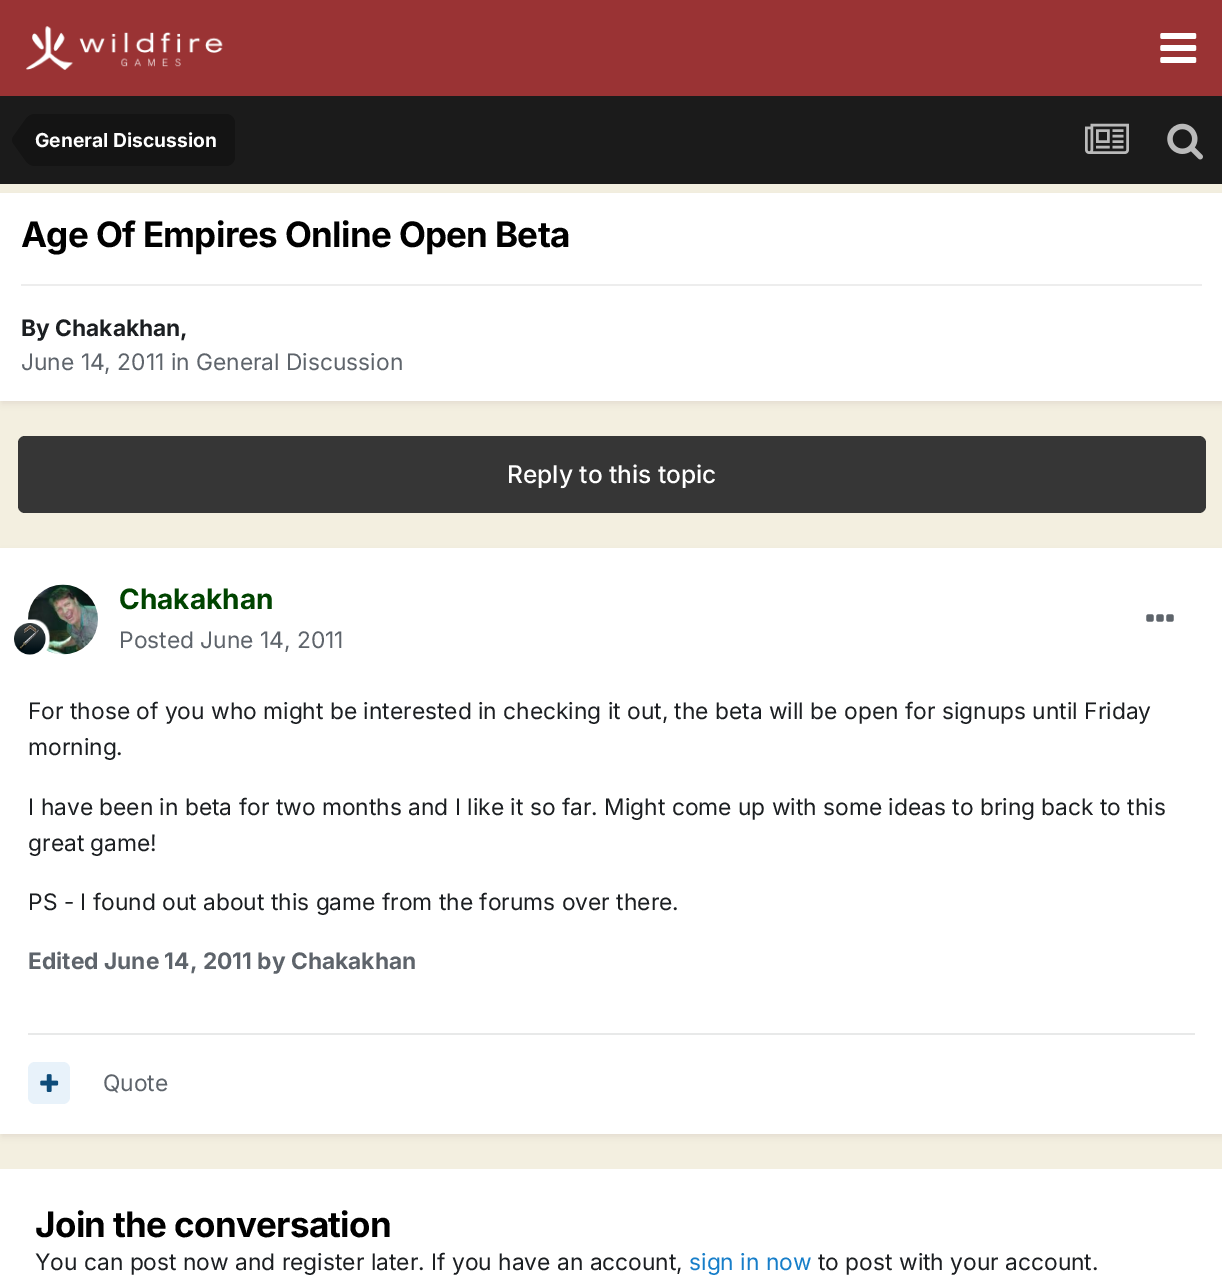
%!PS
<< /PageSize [1222 1280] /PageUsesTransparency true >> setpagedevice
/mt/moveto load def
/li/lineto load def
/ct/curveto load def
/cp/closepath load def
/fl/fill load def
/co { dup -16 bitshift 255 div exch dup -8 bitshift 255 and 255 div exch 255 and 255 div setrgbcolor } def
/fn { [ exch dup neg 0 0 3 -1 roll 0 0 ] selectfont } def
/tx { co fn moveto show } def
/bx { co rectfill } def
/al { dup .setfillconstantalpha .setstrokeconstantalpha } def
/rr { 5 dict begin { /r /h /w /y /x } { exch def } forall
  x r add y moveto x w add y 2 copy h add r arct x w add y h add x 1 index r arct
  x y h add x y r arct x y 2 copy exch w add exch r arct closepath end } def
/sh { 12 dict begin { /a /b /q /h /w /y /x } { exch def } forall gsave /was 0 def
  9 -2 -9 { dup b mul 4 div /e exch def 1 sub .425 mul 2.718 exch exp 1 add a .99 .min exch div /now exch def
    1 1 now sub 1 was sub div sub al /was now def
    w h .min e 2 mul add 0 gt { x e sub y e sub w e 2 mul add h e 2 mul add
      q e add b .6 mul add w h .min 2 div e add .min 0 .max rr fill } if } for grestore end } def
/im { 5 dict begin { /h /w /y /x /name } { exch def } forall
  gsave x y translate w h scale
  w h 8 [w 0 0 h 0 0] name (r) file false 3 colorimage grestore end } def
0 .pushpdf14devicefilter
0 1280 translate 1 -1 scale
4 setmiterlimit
0 0 1222 1280 16#F3EFE0 bx
0 0 1222 96 16#9A3334 bx
(media/1.raw) 26 26 197 44 im
(media/2.raw) 1160 33 37 30 im
0 96 1222 88 16#1B1B1B bx
16#141414 co
35 114 mt 226 114 li 231 114 235 118 235 123 ct 235 157 li 235 162 231 166 226 166 ct 35 166 li cp fl
35 140 mt 35 166 li 31 166 27.5 164 25 160 ct 12.5 142.5 li 12 140 li cp 35 140 mt 12 140 li 12.5 137.5 li 25 120 li 27.5 116 31 114 35 114 ct cp fl
(media/3.raw) 1085 123 44 31 im
(media/4.raw) 1167 123 36 37 im
16#4A283A co
2 198 1220 205 0 3.5 .1 sh
0 193 1222 208 16#FFFFFF bx
21 284 1181 2 16#EDEDED bx
16#363636 co
18 436 1188 77 7 rr fl
16#4A283A co
2 553 1220 583 0 3.5 .1 sh
0 548 1222 586 16#FFFFFF bx
(media/5.raw) 28 584 70 71 im
(media/6.raw) 14 619 36 36 im
(media/7.raw) 1146 614 28 8 im
28 1033 1167 2 16#E8E9E9 bx
16#E8F2FA co
28 1062 42 42 7 rr fl
(media/8.raw) 40 1074 19 18 im
0 1169 1222 111 16#FFFFFF bx
(General Discussion) 35 147 /Inter-Bold 19.25 16#FFFFFF tx
/Inter-Bold 35 fn
16#000000 co
21 247 mt -.7 0 (Age Of Empires Online Open Beta) ashow
(By Chakakhan,) 21 336 /Inter-Bold 22.75 16#1C1F22 tx
(June 14, 2011 in General Discussion) 21 370 /Inter-Regular 22.75 16#5E646B tx
(Reply to this topic) 507 483 /Inter-Medium 24.5 16#FFFFFF tx
(Chakakhan) 119 609 /Inter-Bold 28 16#004400 tx
(Posted June 14, 2011) 119 648 /Inter-Regular 22.75 16#5E646B tx
(For those of you who might be interested in checking it out, the beta will be open for signups until Friday) 28 719 /Inter-Regular 22.75 16#1C1F22 tx
(morning.) 28 755 /Inter-Regular 22.75 16#1C1F22 tx
(I have been in beta for two months and I like it so far. Might come up with some ideas to bring back to this) 28 815 /Inter-Regular 22.75 16#1C1F22 tx
(great game!) 28 851 /Inter-Regular 22.75 16#1C1F22 tx
(PS - I found out about this game from the forums over there.) 28 910 /Inter-Regular 22.75 16#1C1F22 tx
(Edited June 14, 2011 by Chakakhan) 28 969 /Inter-Bold 22.75 16#5E646B tx
(Quote) 103 1091 /Inter-Regular 22.75 16#5E646B tx
/Inter-Bold 35 fn
16#000000 co
35 1237 mt -.7 0 (Join the conversation) ashow
(You can post now and register later. If you have an account,) 35 1270 /Inter-Regular 22.75 16#1C1F22 tx
(sign in now) 689 1270 /Inter-Regular 22.75 16#177EC9 tx
(to post with your account.) 818 1270 /Inter-Regular 22.75 16#1C1F22 tx
.poppdf14devicefilter showpage
